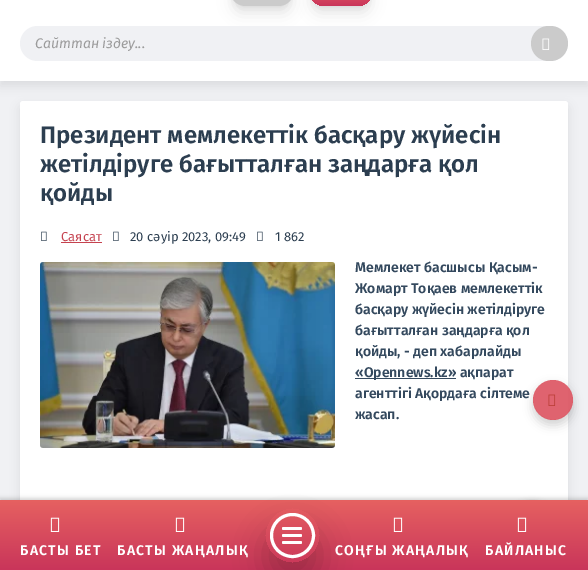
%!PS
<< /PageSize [588 570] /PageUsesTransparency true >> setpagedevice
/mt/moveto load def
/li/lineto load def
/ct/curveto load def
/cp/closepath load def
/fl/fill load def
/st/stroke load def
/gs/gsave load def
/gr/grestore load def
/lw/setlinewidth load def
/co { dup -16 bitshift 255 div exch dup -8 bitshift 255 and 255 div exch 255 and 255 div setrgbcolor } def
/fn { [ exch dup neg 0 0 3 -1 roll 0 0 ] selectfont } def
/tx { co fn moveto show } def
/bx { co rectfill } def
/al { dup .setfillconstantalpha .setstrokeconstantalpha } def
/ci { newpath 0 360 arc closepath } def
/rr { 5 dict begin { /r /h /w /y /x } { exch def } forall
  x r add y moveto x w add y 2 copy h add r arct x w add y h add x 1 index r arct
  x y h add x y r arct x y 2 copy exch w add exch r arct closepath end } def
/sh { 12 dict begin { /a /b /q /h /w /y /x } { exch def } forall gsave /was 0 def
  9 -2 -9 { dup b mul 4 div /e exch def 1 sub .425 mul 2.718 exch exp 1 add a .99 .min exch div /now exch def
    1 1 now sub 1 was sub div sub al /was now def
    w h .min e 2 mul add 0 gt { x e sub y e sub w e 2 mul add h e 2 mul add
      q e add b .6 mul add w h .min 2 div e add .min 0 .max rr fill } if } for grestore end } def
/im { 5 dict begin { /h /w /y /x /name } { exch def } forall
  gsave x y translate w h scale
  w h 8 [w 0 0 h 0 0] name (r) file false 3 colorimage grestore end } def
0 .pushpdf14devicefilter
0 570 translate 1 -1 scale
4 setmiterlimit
0 0 588 570 16#F0F1F4 bx
16#000000 co
0 -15 588 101 0 5 .08 sh
0 0 588 81 16#FFFFFF bx
16#000000 co
232 -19 60 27 13.5 3 .05 sh
233 -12 58 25 12.5 7.5 .1 sh
16#CBCBCB co
230 -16 64 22 15.5 rr fl
16#000000 co
311 -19 60 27 13.5 3 .05 sh
312 -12 58 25 12.5 7.5 .1 sh
gs 309 -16 64 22 15.5 rr clip newpath
<< /ShadingType 2 /ColorSpace /DeviceRGB /Coords [341 -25 341 6] /Extend [true true] /Function << /FunctionType 2 /Domain [0 1] /C0 [.976 .443 .443] /C1 [.788 .208 .353] /N 1 >> >> shfill gr
16#F0F1F4 co
20 26 548 35 17.5 rr fl
16#CBCBCB co
531 26 37 35 17.5 rr fl
(media/1.raw) 542 38 8 12 im
16#000000 co
20 106 548 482 3 5 .08 sh
16#FFFFFF co
20 101 548 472 3 rr fl
(media/2.raw) 41 231 6 10 im
61 242 41 1 16#C5424F bx
(media/2.raw) 113 231 6 10 im
(media/2.raw) 257 231 6 10 im
16#000000 co
507 501 50 50 25 2.5 .15 sh
(media/3.raw) 40 262 295 186 im
355 378 101 1 16#34495E bx
16#000000 co
0 498 588 70 0 2 .16 sh
gs 0 500 mt 588 500 li 588 570 li 0 570 li cp clip newpath
<< /ShadingType 2 /ColorSpace /DeviceRGB /Coords [294 500 294 570] /Extend [true true] /Function << /FunctionType 2 /Domain [0 1] /C0 [.902 .38 .38] /C1 [.788 .208 .353] /N 1 >> >> shfill gr
(media/4.raw) 50 517 10 15 im
(media/4.raw) 175 517 10 15 im
gs
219 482 mt 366 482 li 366 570 li 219 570 li cp 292.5 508 mt 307.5 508 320 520.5 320 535.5 ct 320 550.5 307.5 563 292.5 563 ct 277.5 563 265 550.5 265 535.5 ct 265 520.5 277.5 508 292.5 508 ct cp eoclip newpath
265 528 55 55 27.5 15 .2 sh
gr
16#FFFFFF co
3 lw
292.5 535.5 21 ci st
282 534 20 3 1.5 rr fl
282 527 20 3 1.5 rr fl
282 541 20 3 1.5 rr fl
(media/4.raw) 393 517 10 15 im
(media/4.raw) 517 517 10 15 im
gs
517 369 mt 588 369 li 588 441 li 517 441 li cp 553 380 mt 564 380 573 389 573 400 ct 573 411 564 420 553 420 ct 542 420 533 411 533 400 ct 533 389 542 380 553 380 ct cp eoclip newpath
16#000000 co
533 385 40 40 20 5 .18 sh
gr
0.9 al
16#DC525F co
553 400 20 ci fl
1 al
(media/5.raw) 548 394 8 12 im
(Сайттан іздеу...) 35 48 /FiraSans-Italic 14 16#9B9B9B tx
(Президент мемлекеттік басқару жүйесін) 40 143 /FiraSans-SemiBold 24 16#2C3E50 tx
(жетілдіруге бағытталған заңдарға қол) 40 172 /FiraSans-SemiBold 24 16#2C3E50 tx
(қойды) 40 201 /FiraSans-SemiBold 24 16#2C3E50 tx
(Саясат) 61 241 /FiraSans-Regular 13 16#C5424F tx
(20 сәуір 2023, 09:49) 130 241 /FiraSans-Regular 13 16#2C3E50 tx
(1 862) 275 241 /FiraSans-Regular 13 16#2C3E50 tx
(Мемлекет басшысы Қасым-) 355 272 /FiraSans-SemiBold 14 16#34495E tx
(Жомарт Тоқаев мемлекеттік) 355 293 /FiraSans-SemiBold 14 16#34495E tx
(басқару жүйесін жетілдіруге) 355 314 /FiraSans-SemiBold 14 16#34495E tx
(бағытталған заңдарға қол) 355 335 /FiraSans-SemiBold 14 16#34495E tx
(қойды, - деп хабарлайды) 355 356 /FiraSans-SemiBold 14 16#34495E tx
(«Opennews.kz» ақпарат) 355 377 /FiraSans-SemiBold 14 16#34495E tx
(агенттігі Ақордаға сілтеме) 355 398 /FiraSans-SemiBold 14 16#34495E tx
(жасап.) 355 419 /FiraSans-SemiBold 14 16#34495E tx
16#FFFFFF co
20 555 mt 1.25 0 (БАСТЫ БЕТ) ashow
117 555 mt 1.25 0 (БАСТЫ ЖАҢАЛЫҚ) ashow
335 555 mt 1.25 0 (СОҢҒЫ ЖАҢАЛЫҚ) ashow
485 555 mt 1.25 0 (БАЙЛАНЫС) ashow
.poppdf14devicefilter showpage
